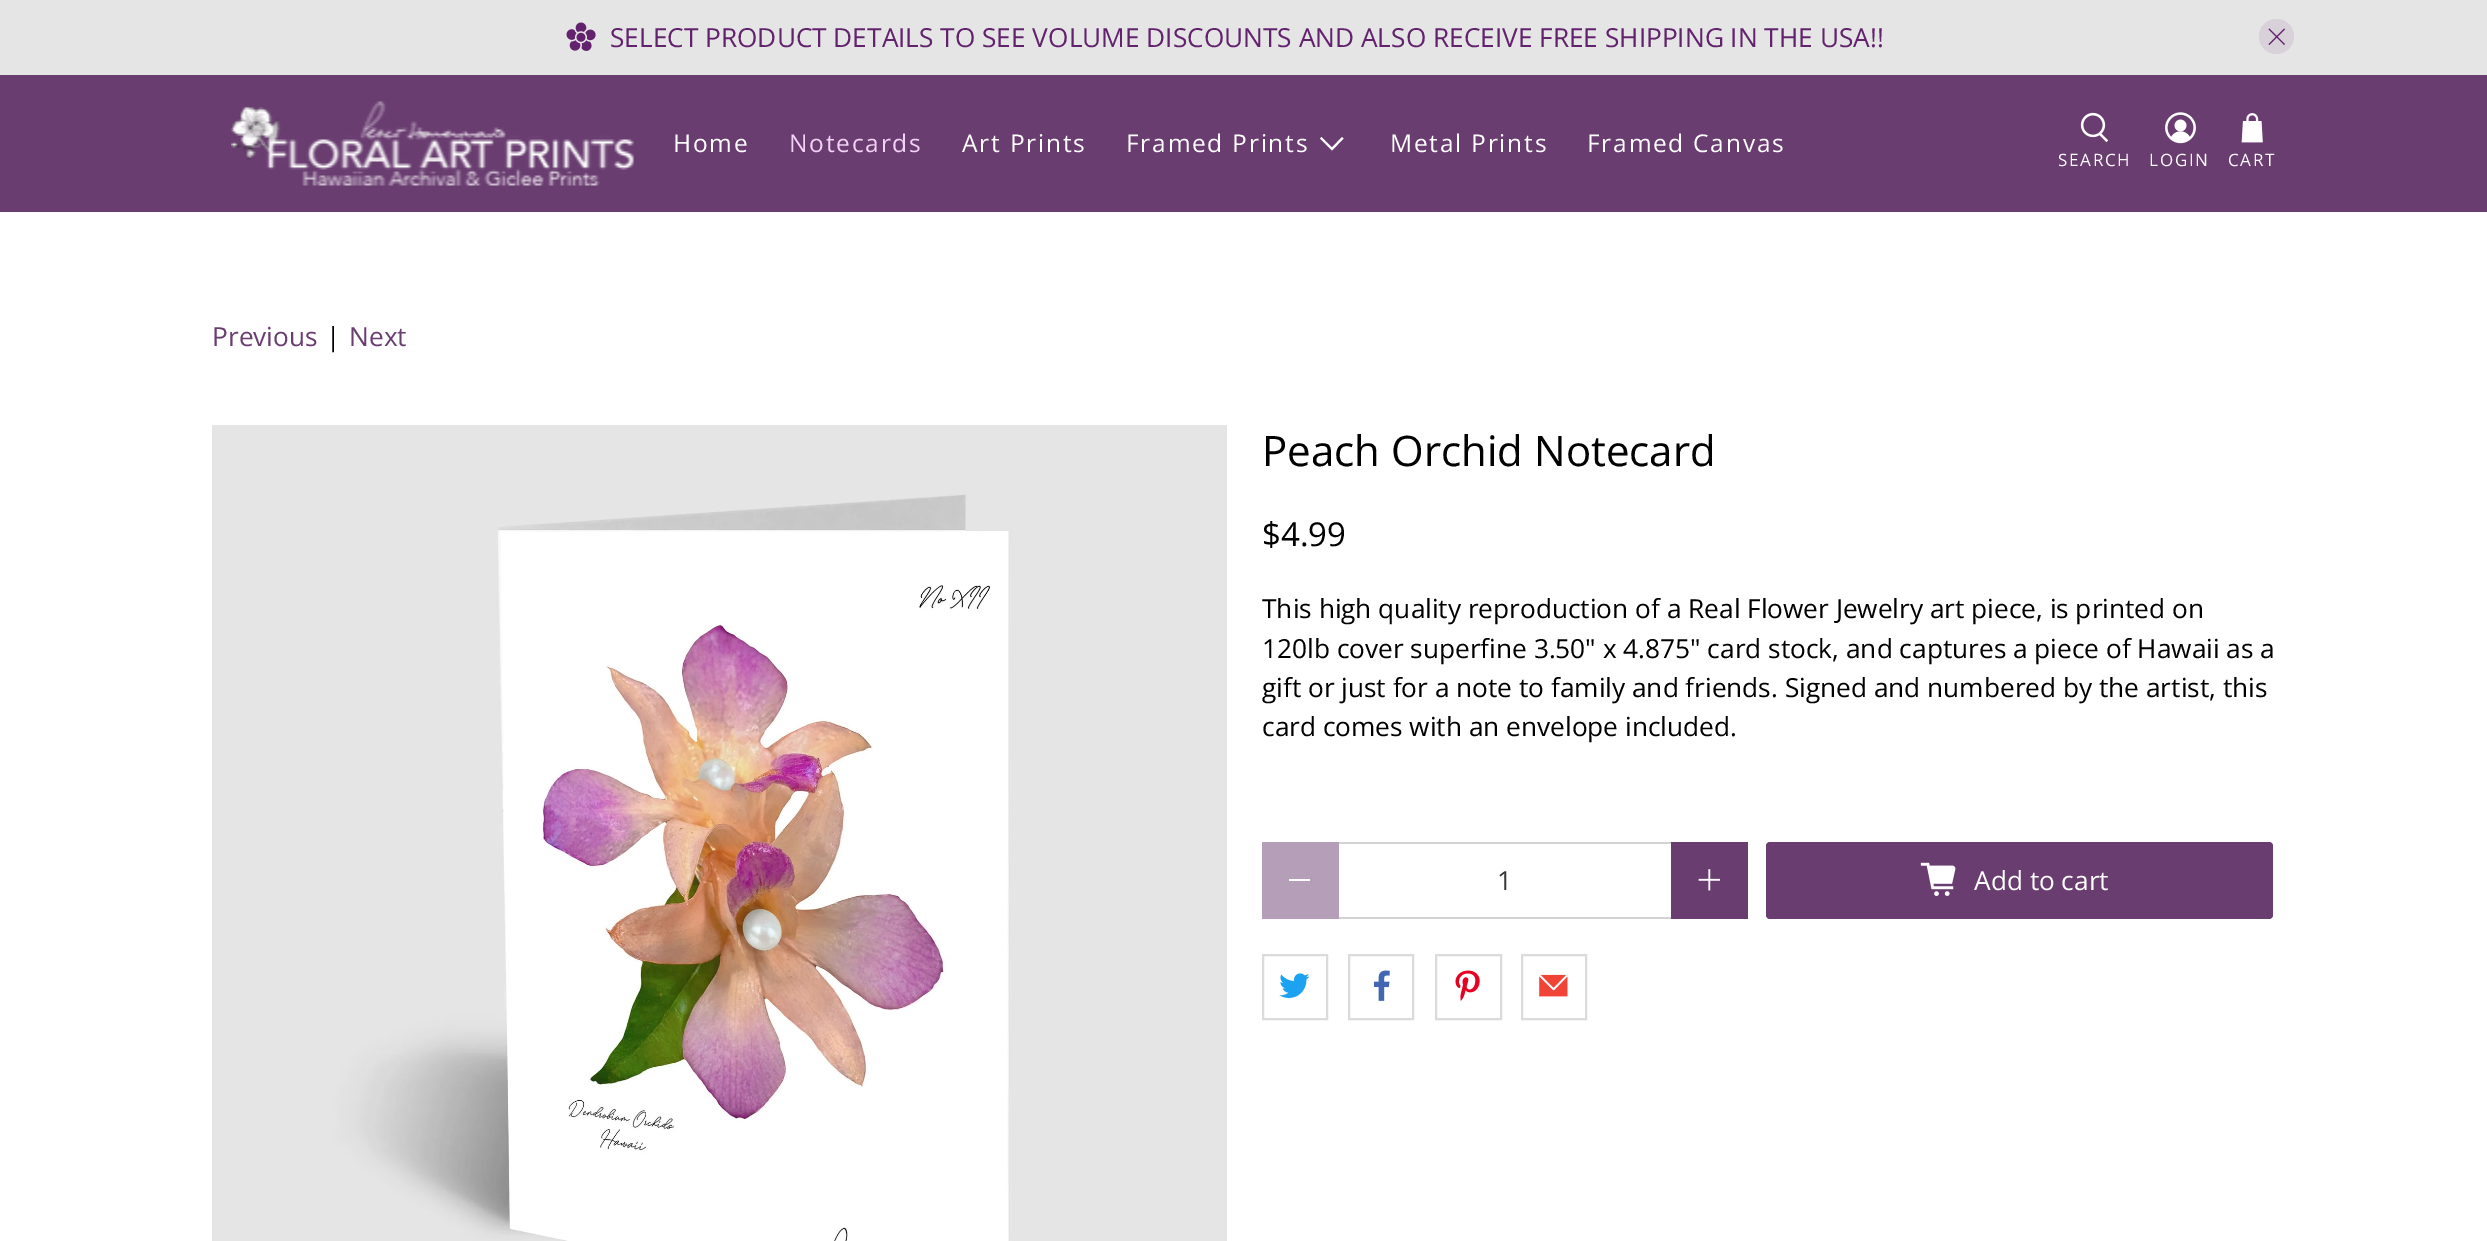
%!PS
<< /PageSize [2487 1241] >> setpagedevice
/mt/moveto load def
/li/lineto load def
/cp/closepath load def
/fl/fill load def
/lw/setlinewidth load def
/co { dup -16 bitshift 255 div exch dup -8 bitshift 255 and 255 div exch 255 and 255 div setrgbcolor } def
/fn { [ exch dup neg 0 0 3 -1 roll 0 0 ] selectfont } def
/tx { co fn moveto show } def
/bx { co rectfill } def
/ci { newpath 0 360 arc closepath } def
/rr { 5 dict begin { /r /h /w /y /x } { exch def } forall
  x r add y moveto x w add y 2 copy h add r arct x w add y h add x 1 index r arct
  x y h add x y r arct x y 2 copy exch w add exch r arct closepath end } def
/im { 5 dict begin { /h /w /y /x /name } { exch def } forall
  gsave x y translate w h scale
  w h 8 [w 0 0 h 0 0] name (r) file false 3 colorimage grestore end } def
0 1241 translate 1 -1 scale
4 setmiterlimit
0 0 2487 1241 16#FFFFFF bx
0 0 2487 75 16#E5E5E5 bx
(media/1.raw) 566 22 30 29 im
16#D8D1D9 co
2276.5 36.5 17.5 ci fl
(media/2.raw) 2268 28 17 17 im
0 75 2487 137 16#6A3D71 bx
(media/3.raw) 231 101 403 85 im
16#FFFFFF co
1332 150.5 mt 1320 138.5 li 1321.5 137 li 1332 147.5 li 1342 137 li 1343.5 138.5 li cp fl
(media/4.raw) 2080 112 29 31 im
(media/5.raw) 2165 112 31 32 im
(media/6.raw) 2241 113 22 30 im
(media/7.raw) 212 425 1015 816 im
1262 842 77 77 16#B59EB8 bx
1289 879 21 2 16#FFFFFF bx
1339 842 332 2 16#D3D3D3 bx
1339 917 332 2 16#D3D3D3 bx
1671 842 77 77 16#6A3D71 bx
(media/8.raw) 1698 869 22 22 im
1766 842 507 77 4 rr fl
(media/9.raw) 1920 862 36 34 im
16#DBDBDB co
2 lw
1263 955 64 64 rectstroke
(media/10.raw) 1279 973 31 25 im
1349 955 64 64 rectstroke
(media/11.raw) 1373 970 17 31 im
1436 955 65 64 rectstroke
(media/12.raw) 1455 970 25 31 im
1522 955 64 64 rectstroke
(media/13.raw) 1539 974 29 23 im
(SELECT PRODUCT DETAILS TO SEE VOLUME DISCOUNTS AND ALSO RECEIVE FREE SHIPPING IN THE USA!!) 610 47 /OpenSans-Regular 26.25 16#62226D tx
/OpenSans-Regular 24.5 fn
16#FFFFFF co
673 152 mt 1.75 0 (Home) ashow
16#F2D2F5 co
789 152 mt 1.75 0 (Notecards) ashow
16#FFFFFF co
962 152 mt 1.75 0 (Art Prints) ashow
1126 152 mt 1.75 0 (Framed Prints) ashow
1390 152 mt 1.75 0 (Metal Prints) ashow
1587 152 mt 1.75 0 (Framed Canvas) ashow
/OpenSans-Regular 17 fn
2058 166 mt 1.75 0 (SEARCH) ashow
2149 166 mt 1.75 0 (LOGIN) ashow
2228 166 mt 1.75 0 (CART) ashow
(Previous) 212 346 /OpenSans-Regular 26.25 16#6A3D71 tx
(|) 326 346 /OpenSans-Regular 26.25 16#000000 tx
(Next) 349 346 /OpenSans-Regular 26.25 16#6A3D71 tx
(Peach Orchid Notecard) 1262 466 /OpenSans-Regular 42 16#000000 tx
($4.99) 1262 546 /OpenSans-Regular 33 16#000000 tx
(This high quality reproduction of a Real Flower Jewelry art piece, is printed on) 1262 618 /OpenSans-Regular 26.25 16#000000 tx
(120lb cover superfine 3.50" x 4.875" card stock, and captures a piece of Hawaii as a) 1262 658 /OpenSans-Regular 26.25 16#000000 tx
(gift or just for a note to family and friends. Signed and numbered by the artist, this) 1262 697 /OpenSans-Regular 26.25 16#000000 tx
(card comes with an envelope included.) 1262 736 /OpenSans-Regular 26.25 16#000000 tx
(1) 1497 890 /OpenSans-Regular 26.25 16#363636 tx
(Add to cart) 1974 890 /OpenSans-Regular 26.25 16#FFFFFF tx
showpage
